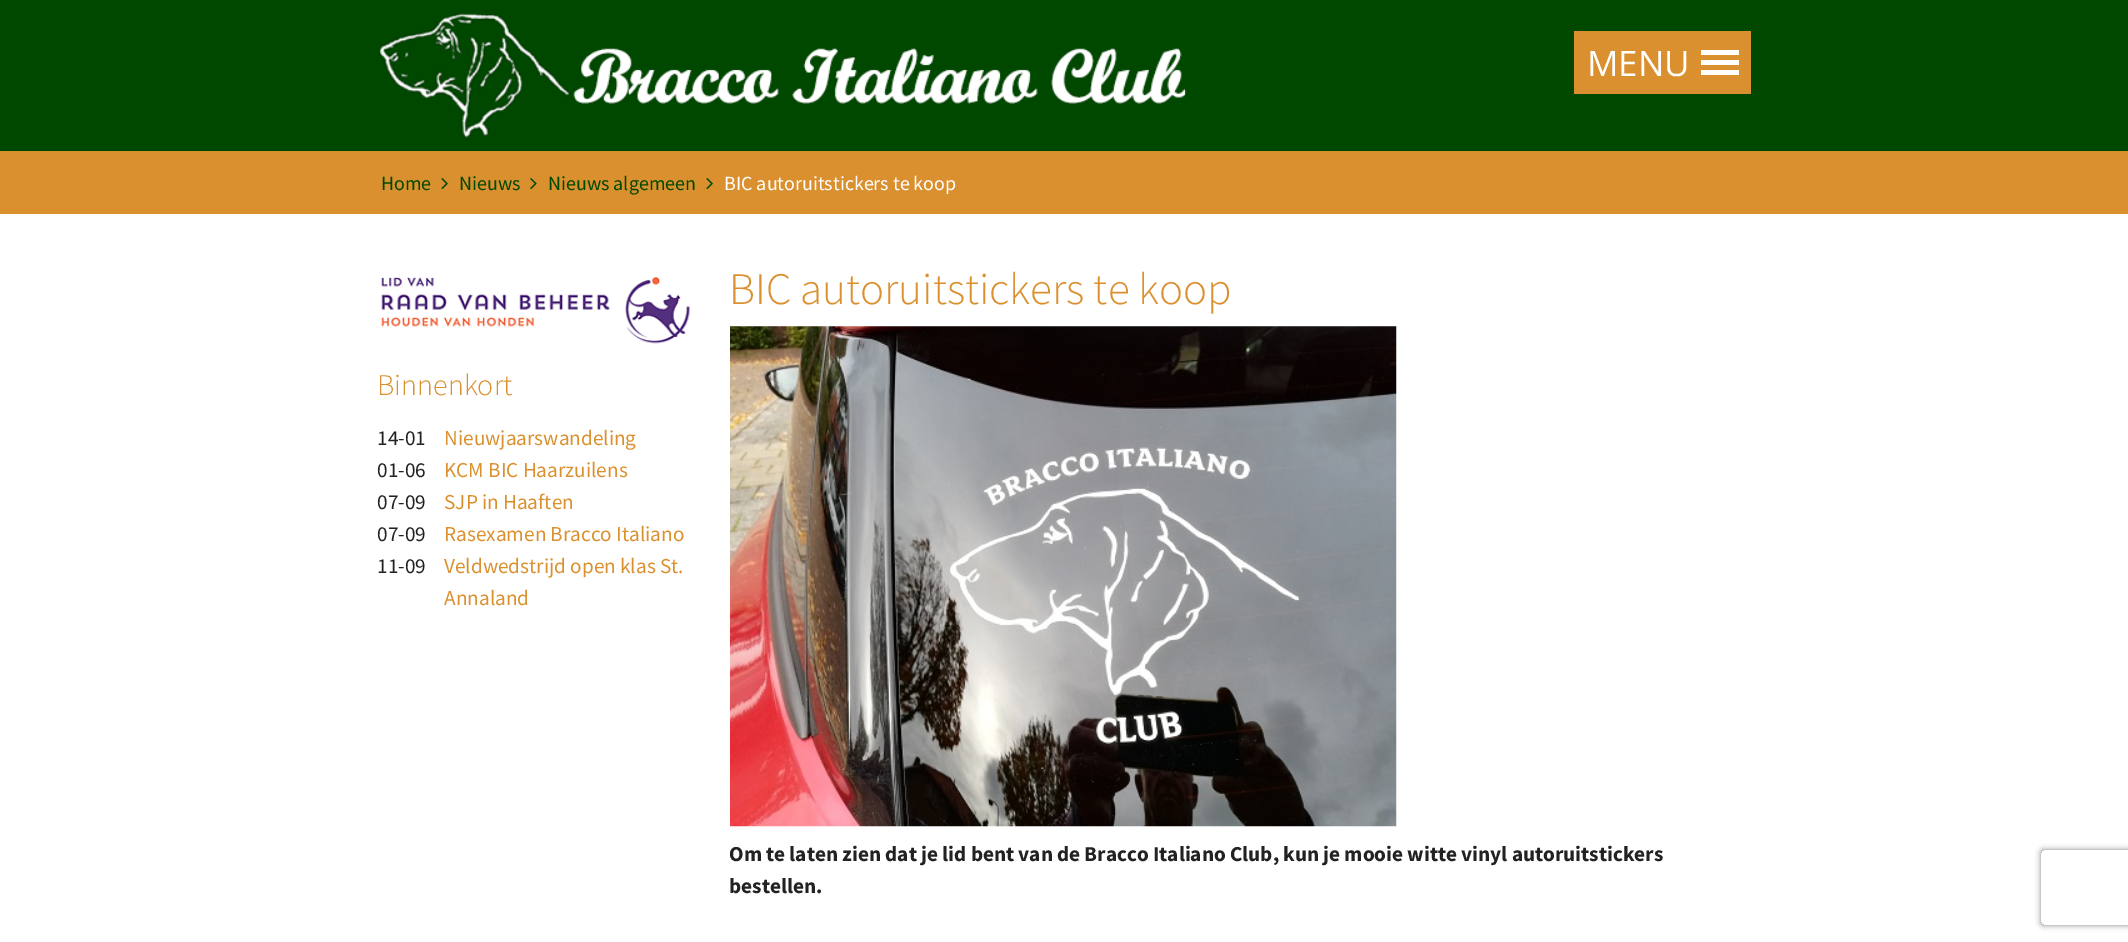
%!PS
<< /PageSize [2128 942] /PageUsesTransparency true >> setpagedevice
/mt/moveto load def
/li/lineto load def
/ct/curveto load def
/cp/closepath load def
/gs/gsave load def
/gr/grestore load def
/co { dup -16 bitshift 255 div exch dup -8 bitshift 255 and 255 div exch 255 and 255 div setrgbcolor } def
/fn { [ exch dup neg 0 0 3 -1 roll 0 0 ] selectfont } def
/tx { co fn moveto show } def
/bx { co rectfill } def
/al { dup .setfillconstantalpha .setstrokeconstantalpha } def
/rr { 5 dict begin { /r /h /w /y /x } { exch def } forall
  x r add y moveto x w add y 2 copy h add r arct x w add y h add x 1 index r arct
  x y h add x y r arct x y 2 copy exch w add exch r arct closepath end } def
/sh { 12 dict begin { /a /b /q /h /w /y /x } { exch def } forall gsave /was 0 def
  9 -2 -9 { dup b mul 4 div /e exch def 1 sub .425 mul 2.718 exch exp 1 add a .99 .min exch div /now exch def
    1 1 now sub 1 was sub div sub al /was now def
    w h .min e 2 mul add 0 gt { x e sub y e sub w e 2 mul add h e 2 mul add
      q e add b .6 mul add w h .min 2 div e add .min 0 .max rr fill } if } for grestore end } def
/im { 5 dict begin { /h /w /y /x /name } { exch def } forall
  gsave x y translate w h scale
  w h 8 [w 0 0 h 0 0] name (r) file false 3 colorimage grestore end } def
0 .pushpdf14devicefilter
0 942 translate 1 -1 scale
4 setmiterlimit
0 0 2128 942 16#FFFFFF bx
0 0 2128 151 16#004800 bx
(media/1.raw) 379 12 807 127 im
1574 31 177 63 16#DB902F bx
1701 50 38 5 16#FFFFFF bx
1701 60 38 5 16#FFFFFF bx
1701 70 38 5 16#FFFFFF bx
0 151 2128 63 16#DB902F bx
(media/2.raw) 441 178 7 12 im
(media/3.raw) 530 178 7 12 im
(media/2.raw) 706 178 7 12 im
(media/4.raw) 381 276 309 68 im
(media/5.raw) 730 326 667 501 im
gs
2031 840 mt 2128 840 li 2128 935 li 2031 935 li cp 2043.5 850 mt 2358.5 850 li 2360 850 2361 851 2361 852.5 ct 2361 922.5 li 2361 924 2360 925 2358.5 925 ct 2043.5 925 li 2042 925 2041 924 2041 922.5 ct 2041 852.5 li 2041 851 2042 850 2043.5 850 ct cp eoclip newpath
16#808080 co
2041 850 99 75 2.5 3 1 sh
gr
(MENU) 1587 76 /OpenSans-Regular 35 16#FFFFFF tx
(Home) 381 190 /SourceSansPro-Regular 20 16#004800 tx
(Nieuws) 459 190 /SourceSansPro-Regular 20 16#004800 tx
(Nieuws algemeen) 548 190 /SourceSansPro-Regular 20 16#004800 tx
(BIC autoruitstickers te koop) 724 190 /SourceSansPro-Regular 20 16#FFFFFF tx
(Binnenkort) 377 395 /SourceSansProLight-Light 30 16#DB902F tx
(14-01) 377 445 /SourceSansPro-Regular 21.25 16#222222 tx
(Nieuwjaarswandeling) 444 445 /SourceSansPro-Regular 21.25 16#DB902F tx
(01-06) 377 477 /SourceSansPro-Regular 21.25 16#222222 tx
(KCM BIC Haarzuilens) 444 477 /SourceSansPro-Regular 21.25 16#DB902F tx
(07-09) 377 509 /SourceSansPro-Regular 21.25 16#222222 tx
(SJP in Haaften) 444 509 /SourceSansPro-Regular 21.25 16#DB902F tx
(07-09) 377 541 /SourceSansPro-Regular 21.25 16#222222 tx
(Rasexamen Bracco Italiano) 444 541 /SourceSansPro-Regular 21.25 16#DB902F tx
(11-09) 377 573 /SourceSansPro-Regular 21.25 16#222222 tx
(Veldwedstrijd open klas St.) 444 573 /SourceSansPro-Regular 21.25 16#DB902F tx
(Annaland) 444 605 /SourceSansPro-Regular 21.25 16#DB902F tx
(BIC autoruitstickers te koop) 729 304 /SourceSansProLight-Light 45 16#DB902F tx
(Om te laten zien dat je lid bent van de Bracco Italiano Club, kun je mooie witte vinyl autoruitstickers) 729 861 /SourceSansPro-Bold 21.25 16#222222 tx
(bestellen.) 729 893 /SourceSansPro-Bold 21.25 16#222222 tx
.poppdf14devicefilter showpage
